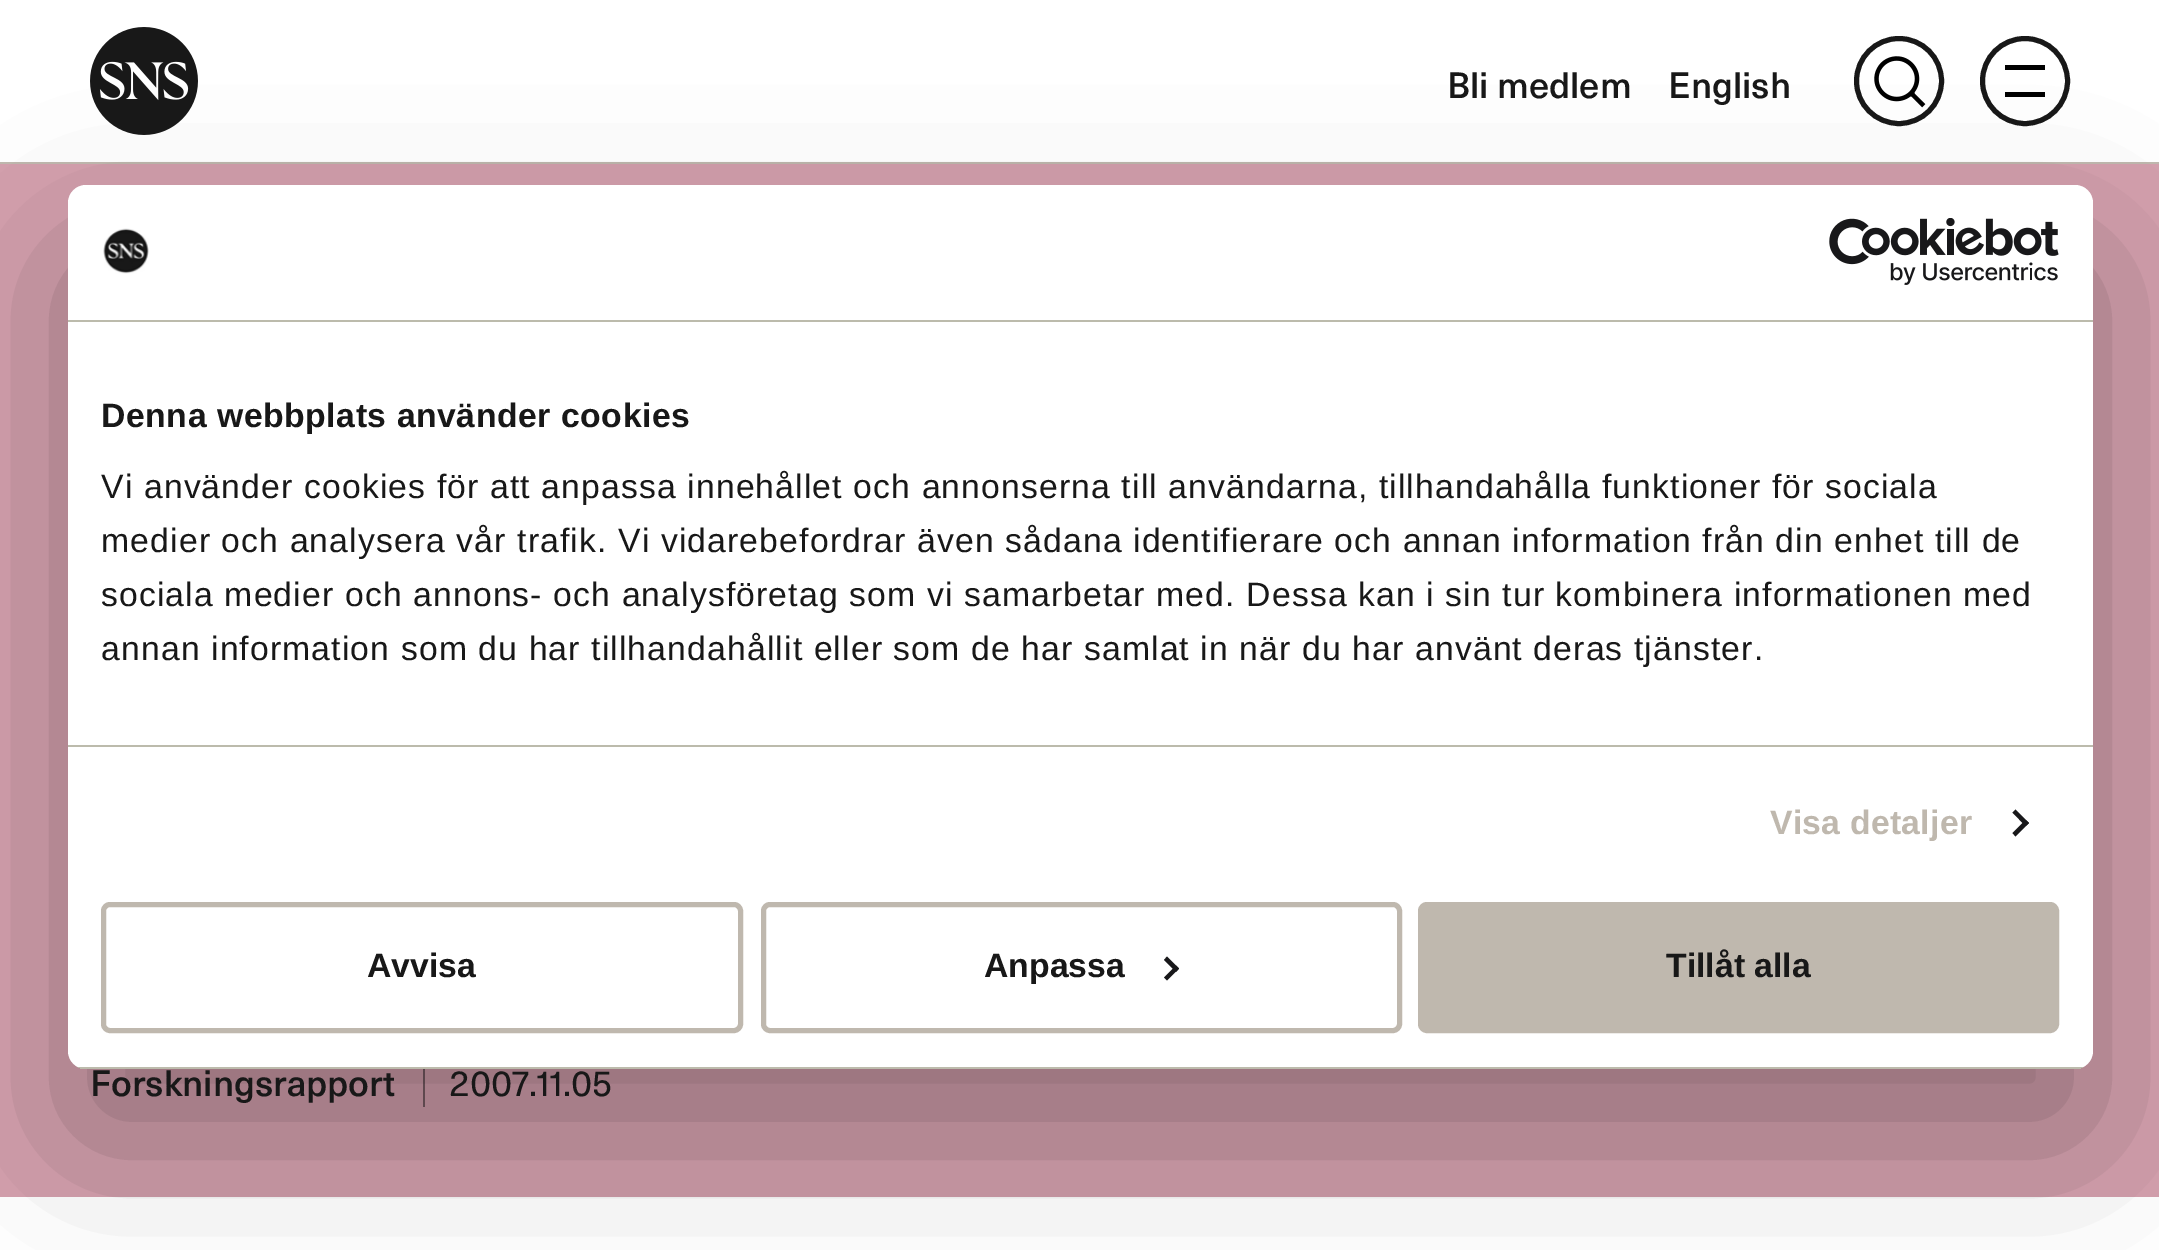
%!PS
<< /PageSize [2159 1250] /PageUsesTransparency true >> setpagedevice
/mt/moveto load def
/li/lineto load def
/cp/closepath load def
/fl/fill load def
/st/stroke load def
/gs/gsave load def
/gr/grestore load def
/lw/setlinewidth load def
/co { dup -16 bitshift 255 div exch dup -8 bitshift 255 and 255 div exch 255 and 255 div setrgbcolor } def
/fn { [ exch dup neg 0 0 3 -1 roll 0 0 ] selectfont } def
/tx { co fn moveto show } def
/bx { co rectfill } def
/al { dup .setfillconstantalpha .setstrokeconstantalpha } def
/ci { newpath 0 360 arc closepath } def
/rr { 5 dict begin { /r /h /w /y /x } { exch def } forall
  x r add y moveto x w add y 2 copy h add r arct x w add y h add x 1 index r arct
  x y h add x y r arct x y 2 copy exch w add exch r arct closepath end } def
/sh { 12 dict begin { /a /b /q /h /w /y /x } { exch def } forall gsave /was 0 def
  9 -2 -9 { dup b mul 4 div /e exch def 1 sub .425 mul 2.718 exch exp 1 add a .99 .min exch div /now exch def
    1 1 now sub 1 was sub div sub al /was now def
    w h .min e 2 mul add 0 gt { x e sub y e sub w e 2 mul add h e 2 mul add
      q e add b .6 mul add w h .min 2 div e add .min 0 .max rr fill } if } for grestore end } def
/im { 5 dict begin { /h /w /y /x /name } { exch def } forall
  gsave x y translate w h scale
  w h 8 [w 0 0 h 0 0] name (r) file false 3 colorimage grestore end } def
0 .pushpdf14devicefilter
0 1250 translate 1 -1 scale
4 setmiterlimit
0 0 2159 1250 16#FFFFFF bx
0 162 2159 2 16#BFB8AE bx
(media/1.raw) 90 27 108 108 im
16#181818 co
5 lw
1899 81 42.5 ci st
(media/2.raw) 1874 56 52 52 im
2025 81 42.5 ci st
16#000000 co
2045 65 mt 2005 65 li 2005 70 li 2045 70 li cp 2045 92 mt 2005 92 li 2005 97 li 2045 97 li cp fl
0 164 2159 1033 16#D4A0AD bx
423 1069 2 38 16#765C62 bx
16#000000 co
68 257 2025 884 18 76.5 .3 sh
16#FFFFFF co
68 185 2025 884 18 rr fl
68 320 2025 2 16#BCBBAC bx
(media/3.raw) 103 228 46 46 im
(media/4.raw) 1829 218 230 67 im
68 745 2025 2 16#BCBBAC bx
16#18181A co
2015.5 809.5 mt 2029 823 li 2025.5 826 li 2012.5 812.5 li cp fl
2025.5 820 mt 2029 823 li 2015.5 836.5 li 2012.5 833 li cp fl
gs
68 185 2025 884 18 rr clip newpath
78 1067 2005 2 16#BCBBAC bx
gr
16#BFB8AE co
103.5 904.5 637 126 6.5 rr st
763.5 904.5 636 126 6.5 rr st
16#18181A co
1167 956.5 mt 1179 968.5 li 1176 972 li 1164 960 li cp fl
1176 965.5 mt 1179 968.5 li 1167 980.5 li 1164 977.5 li cp fl
16#BFB8AE co
1420.5 904.5 636 126 6.5 rr gs fl gr
st
(Bli medlem) 1447 98 /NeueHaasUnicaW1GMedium-Medium 36 16#181818 tx
(English) 1668 98 /NeueHaasUnicaW1GMedium-Medium 36 16#181818 tx
/LiberationSans-Bold 33.75 fn
101 427 mt .55 0 (Denna webbplats använder cookies) ashow
/LiberationSans-Regular 33.75 fn
101 498 mt 1.12 0 (Vi använder cookies för att anpassa innehållet och annonserna till användarna, tillhandahålla funktioner för sociala) ashow
101 552 mt 1.12 0 (medier och analysera vår trafik. Vi vidarebefordrar även sådana identifierare och annan information från din enhet till de) ashow
101 606 mt 1.12 0 (sociala medier och annons- och analysföretag som vi samarbetar med. Dessa kan i sin tur kombinera informationen med) ashow
101 660 mt 1.12 0 (annan information som du har tillhandahållit eller som de har samlat in när du har använt deras tjänster.) ashow
/LiberationSans-Bold 33.75 fn
16#BFB8AE co
1770 834 mt .25 0 (Visa detaljer) ashow
(Avvisa) 367 977 /LiberationSans-Bold 33.75 16#181818 tx
(Anpassa) 984 977 /LiberationSans-Bold 33.75 16#181818 tx
(Tillåt alla) 1666 977 /LiberationSans-Bold 33.75 16#181818 tx
(Forskningsrapport) 90 1096 /NeueHaasUnicaW1GMedium-Medium 36 16#181818 tx
(2007.11.05) 449 1096 /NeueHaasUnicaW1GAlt-Regular 36 16#181818 tx
.poppdf14devicefilter showpage
